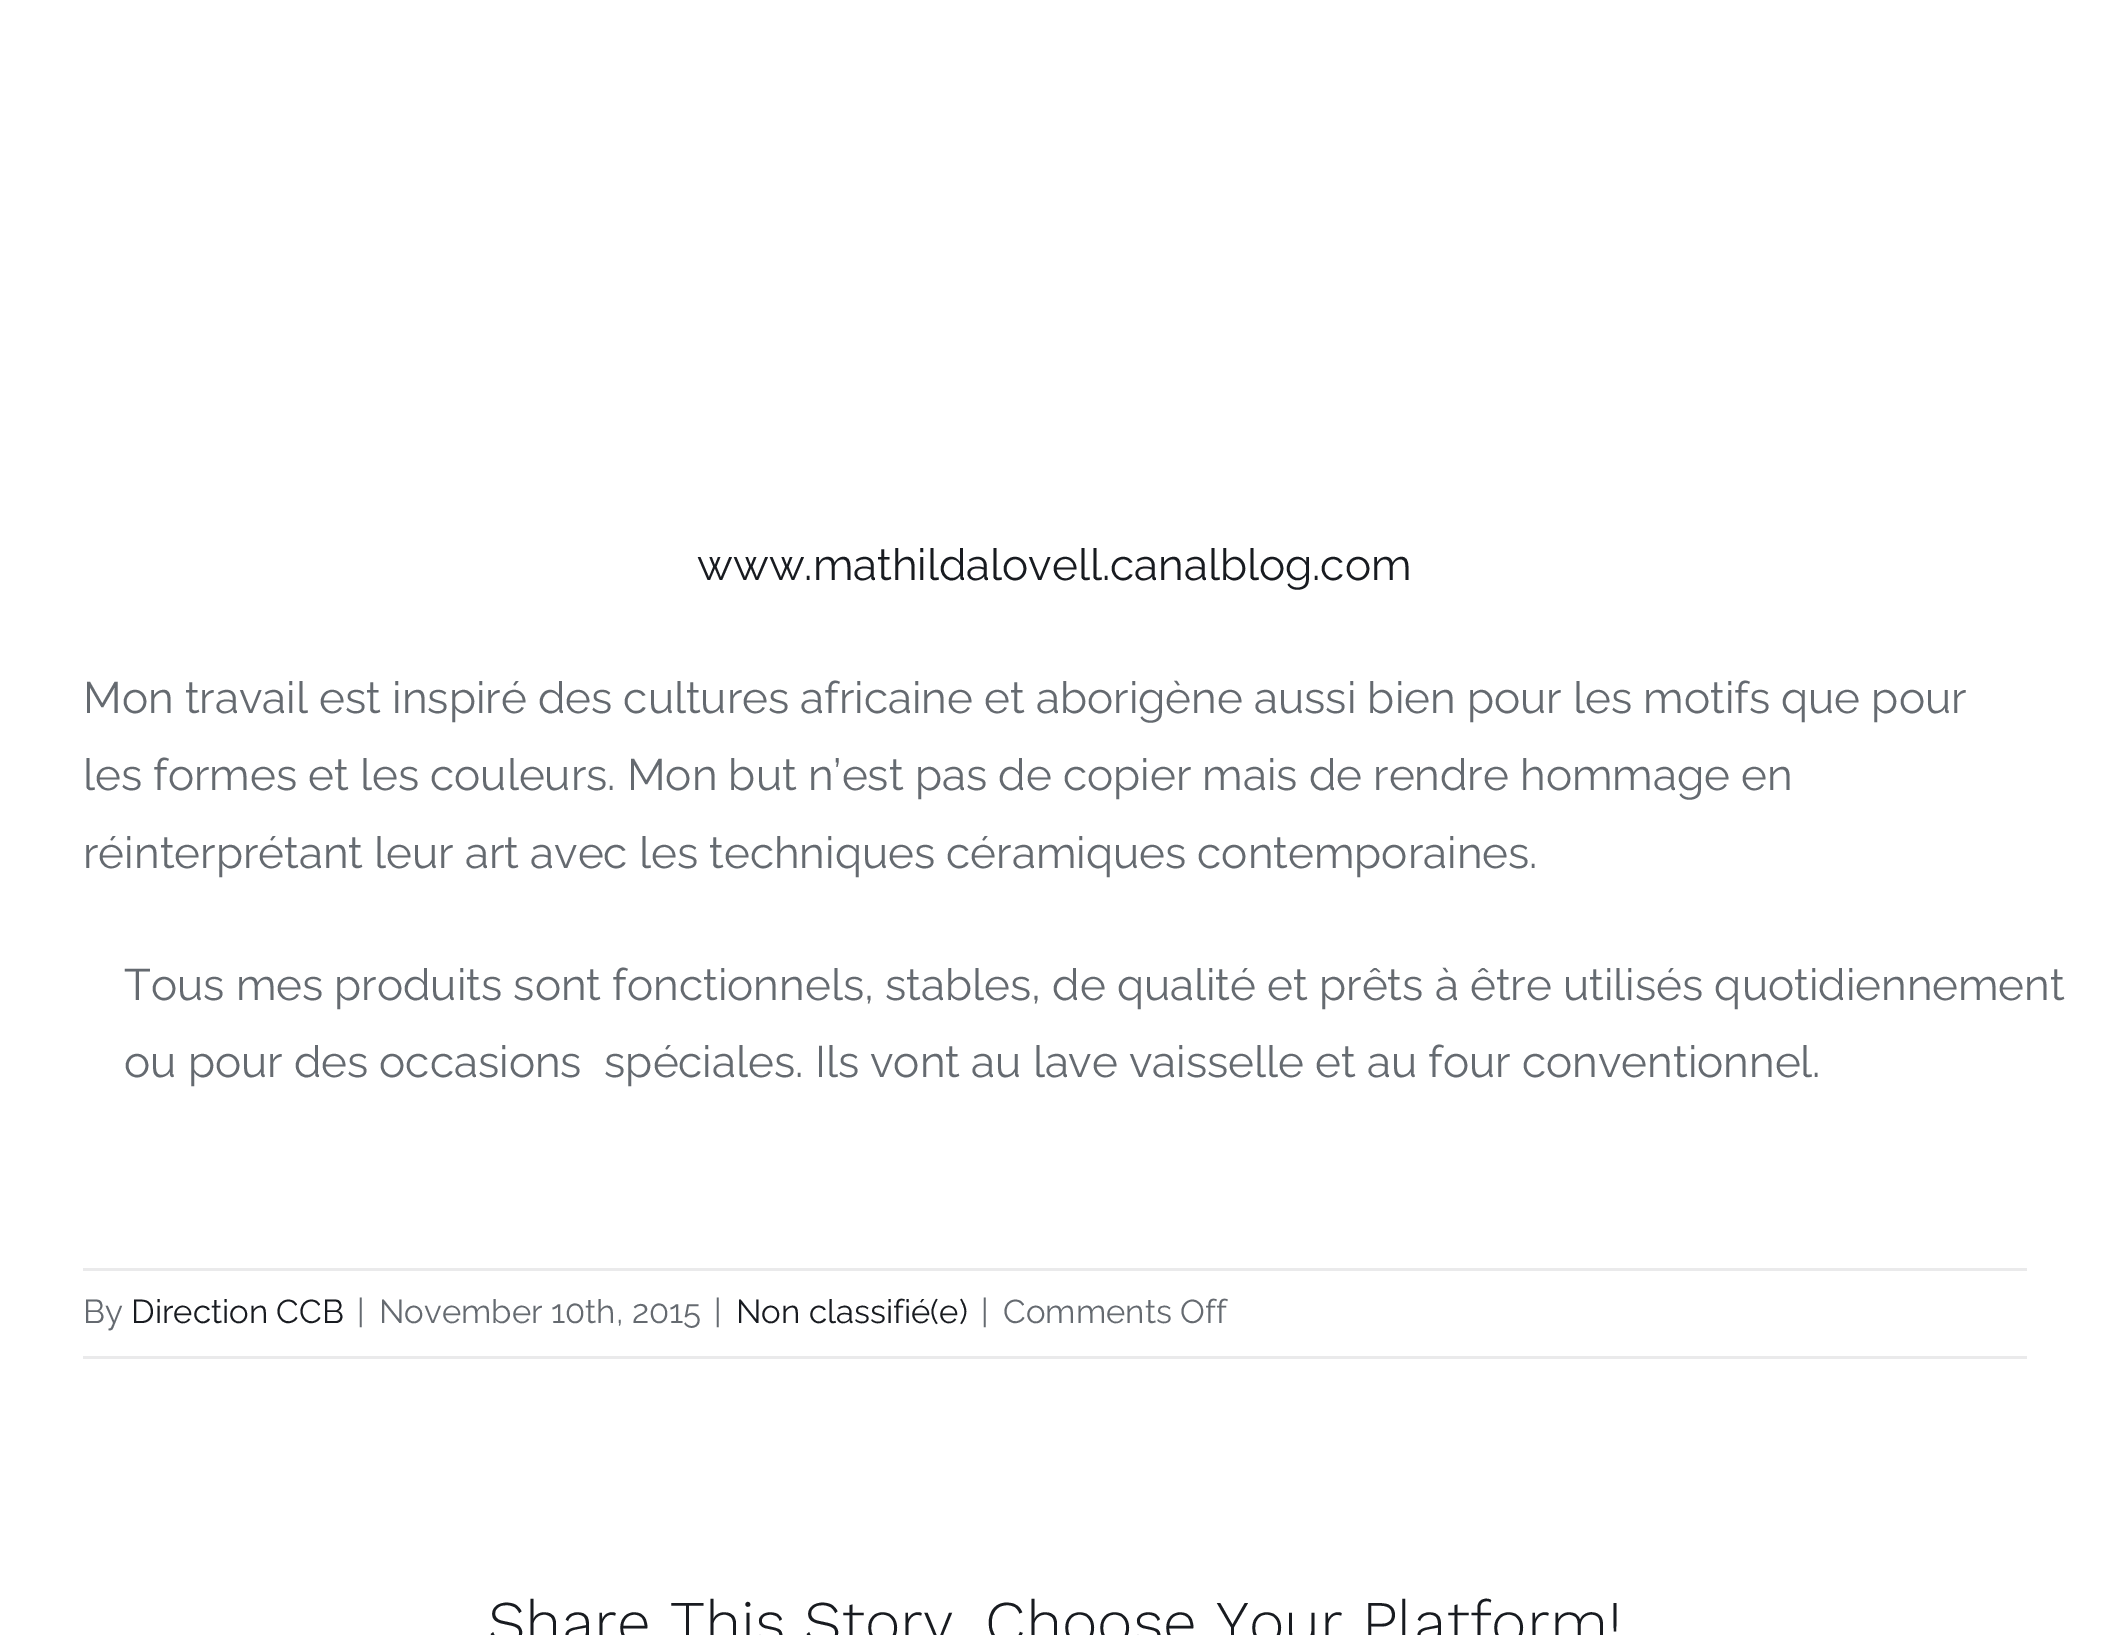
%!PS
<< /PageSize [2107 1635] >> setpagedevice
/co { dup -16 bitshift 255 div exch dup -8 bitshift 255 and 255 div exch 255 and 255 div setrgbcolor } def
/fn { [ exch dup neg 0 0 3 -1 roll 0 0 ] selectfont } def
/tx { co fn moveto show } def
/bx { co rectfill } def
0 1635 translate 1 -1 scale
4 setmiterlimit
0 0 2107 1635 16#FFFFFF bx
83 1268 1944 3 16#EAEAEB bx
83 1356 1944 3 16#EAEAEB bx
(www.mathildalovell.canalblog.com) 697 580 /Raleway-Regular 44 16#181B20 tx
(Mon travail est inspiré des cultures africaine et aborigène aussi bien pour les motifs que pour) 83 713 /Raleway-Regular 44 16#656A70 tx
(les formes et les couleurs. Mon but n’est pas de copier mais de rendre hommage en) 83 790 /Raleway-Regular 44 16#656A70 tx
(réinterprétant leur art avec les techniques céramiques contemporaines.) 83 868 /Raleway-Regular 44 16#656A70 tx
(Tous mes produits sont fonctionnels, stables, de qualité et prêts à être utilisés quotidiennement) 124 1000 /Raleway-Regular 44 16#656A70 tx
(ou pour des occasions  spéciales. Ils vont au lave vaisselle et au four conventionnel.) 124 1077 /Raleway-Regular 44 16#656A70 tx
(By) 83 1323 /Raleway-Regular 33 16#656A70 tx
(Direction CCB) 131 1323 /Raleway-Regular 33 16#181B20 tx
(|) 357 1323 /Raleway-Regular 33 16#656A70 tx
(November 10th, 2015) 379 1323 /Raleway-Regular 33 16#656A70 tx
(|) 714 1323 /Raleway-Regular 33 16#656A70 tx
(Non classifié\(e\)) 736 1323 /Raleway-Regular 33 16#181B20 tx
(|) 981 1323 /Raleway-Regular 33 16#656A70 tx
(Comments Off) 1003 1323 /Raleway-Regular 33 16#656A70 tx
(Share This Story, Choose Your Platform!) 488 1643 /WorkSans-Light 60.5 16#181B20 tx
showpage
